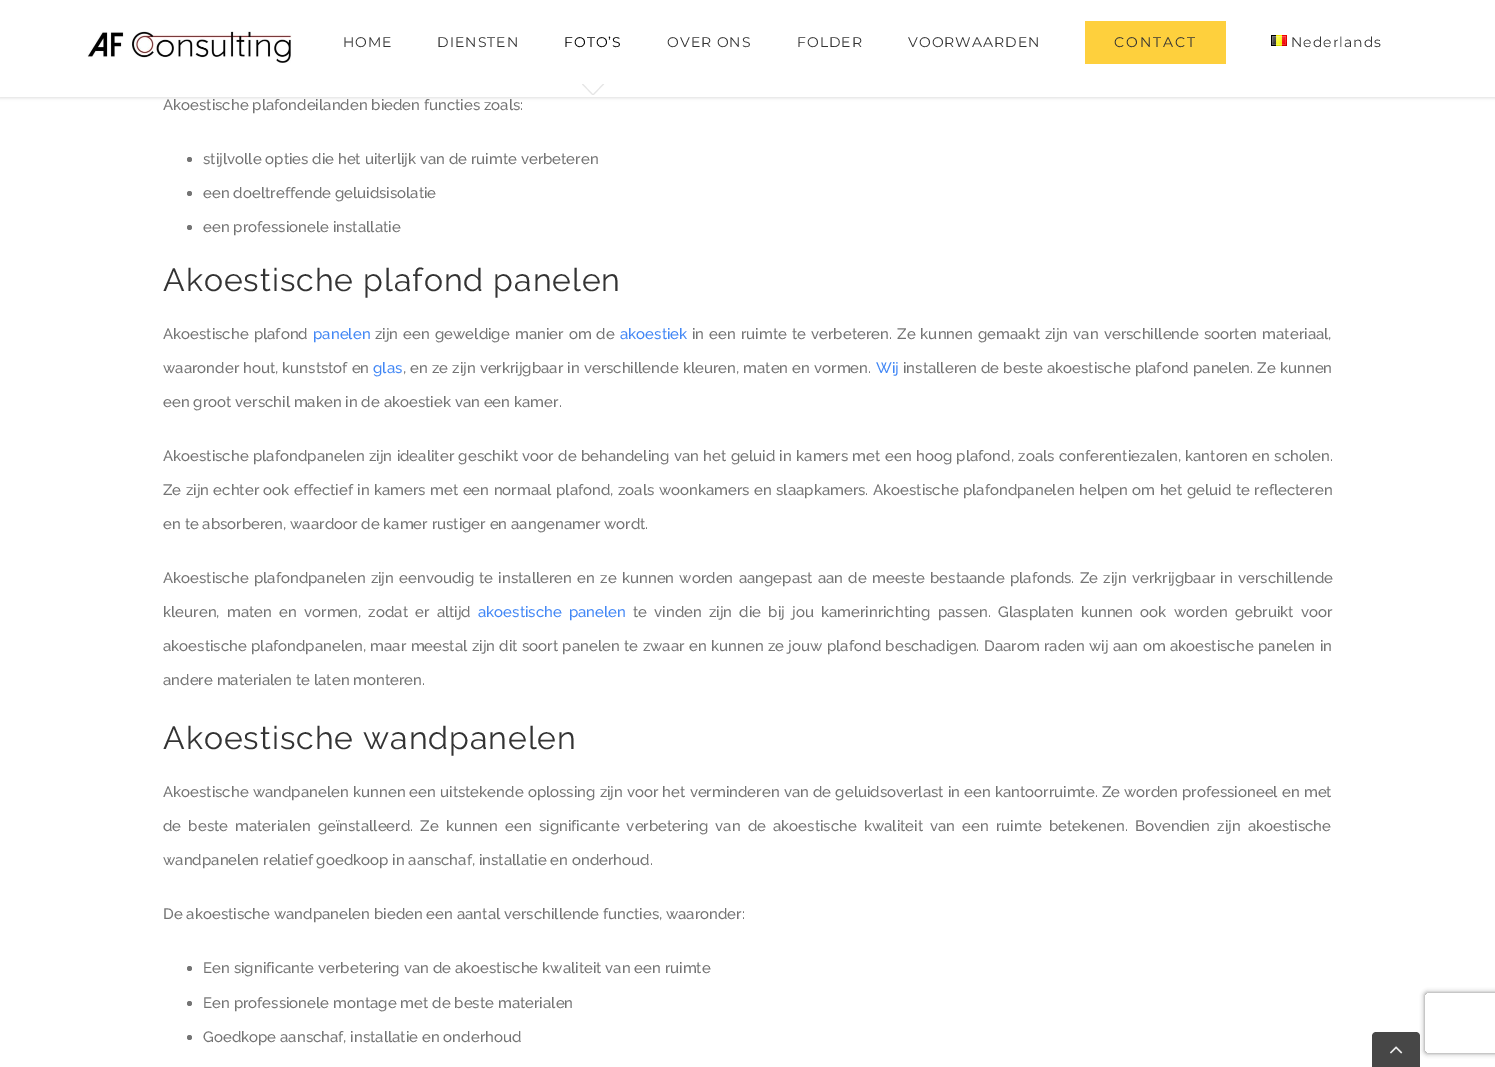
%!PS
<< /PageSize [1495 1067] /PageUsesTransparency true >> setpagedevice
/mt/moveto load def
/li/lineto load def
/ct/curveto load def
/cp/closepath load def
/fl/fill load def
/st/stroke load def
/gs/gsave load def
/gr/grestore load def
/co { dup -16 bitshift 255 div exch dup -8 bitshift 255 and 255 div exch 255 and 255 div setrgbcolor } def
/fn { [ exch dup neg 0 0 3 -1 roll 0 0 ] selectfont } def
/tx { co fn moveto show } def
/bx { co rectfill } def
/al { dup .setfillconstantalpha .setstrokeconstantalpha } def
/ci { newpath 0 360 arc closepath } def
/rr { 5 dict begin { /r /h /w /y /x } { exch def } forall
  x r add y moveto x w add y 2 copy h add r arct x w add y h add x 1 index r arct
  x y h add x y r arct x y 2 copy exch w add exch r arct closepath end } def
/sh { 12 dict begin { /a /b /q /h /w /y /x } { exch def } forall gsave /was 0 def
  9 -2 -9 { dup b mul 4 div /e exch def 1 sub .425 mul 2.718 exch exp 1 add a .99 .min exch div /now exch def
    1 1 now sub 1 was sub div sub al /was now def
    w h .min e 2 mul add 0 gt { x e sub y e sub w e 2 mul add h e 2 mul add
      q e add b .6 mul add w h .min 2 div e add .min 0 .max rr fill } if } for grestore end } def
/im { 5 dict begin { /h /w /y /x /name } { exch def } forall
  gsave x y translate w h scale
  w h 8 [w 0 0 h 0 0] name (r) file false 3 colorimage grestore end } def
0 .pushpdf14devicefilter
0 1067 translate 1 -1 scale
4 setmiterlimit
0 0 1495 1067 16#FFFFFF bx
16#000000 co
0 1 1495 97 0 1.5 .12 sh
0 0 1495 97 16#FFFFFF bx
(media/1.raw) 87 31 205 32 im
gs
582 84 23 11 rectclip
16#E5E5E5 co
581.5 83 mt 593 95 li 604.5 83 li cp st
gr
1085 21 141 43 16#FED03D bx
(media/2.raw) 1271 35 16 11 im
16#747474 co
189.5 159.5 2.5 ci fl
189.5 193.5 2.5 ci fl
189.5 227.5 2.5 ci fl
189.5 968.5 2.5 ci fl
189.5 1003.5 2.5 ci fl
189.5 1037.5 2.5 ci fl
gs
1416 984 mt 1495 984 li 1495 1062 li 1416 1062 li cp 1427 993 mt 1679 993 li 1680 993 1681 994 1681 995 ct 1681 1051 li 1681 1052 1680 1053 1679 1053 ct 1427 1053 li 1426 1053 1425 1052 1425 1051 ct 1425 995 li 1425 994 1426 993 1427 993 ct cp eoclip newpath
16#808080 co
1425 993 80 60 2 2.5 1 sh
gr
16#474747 co
1376 1032 mt 1416 1032 li 1418 1032 1420 1034 1420 1036 ct 1420 1067 li 1372 1067 li 1372 1036 li 1372 1034 1374 1032 1376 1032 ct cp fl
(media/3.raw) 1390 1046 13 8 im
/Montserrat-Regular 14 fn
16#333333 co
343 47 mt 1 0 (HOME) ashow
437 47 mt 1 0 (DIENSTEN) ashow
16#000000 co
564 47 mt 1 0 (FOTO’S) ashow
16#333333 co
667 47 mt 1 0 (OVER ONS) ashow
797 47 mt 1 0 (FOLDER) ashow
908 47 mt 1 0 (VOORWAARDEN) ashow
1114 47 mt 2 0 (CONTACT) ashow
1291 47 mt 1 0 (Nederlands) ashow
(Akoestische plafondeilanden bieden functies zoals:) 163 110 /Raleway-Medium 15 16#747474 tx
(stijlvolle opties die het uiterlijk van de ruimte verbeteren) 203 164 /Raleway-Medium 15 16#747474 tx
(een doeltreffende geluidsisolatie) 203 198 /Raleway-Medium 15 16#747474 tx
(een professionele installatie) 203 232 /Raleway-Medium 15 16#747474 tx
/Raleway-Regular 32 fn
16#333333 co
163 291 mt 1 0 (Akoestische plafond panelen) ashow
/Raleway-Medium 15 fn
16#747474 co
163 339 mt 1.25 0 32 (Akoestische plafond) widthshow
(panelen) 313 339 /Raleway-Medium 15 16#4287F5 tx
16#747474 co
375 339 mt 1.25 0 32 (zijn een geweldige manier om de) widthshow
(akoestiek) 620 339 /Raleway-Medium 15 16#4287F5 tx
16#747474 co
692 339 mt 1.25 0 32 (in een ruimte te verbeteren. Ze kunnen gemaakt zijn van verschillende soorten materiaal,) widthshow
163 373 mt .25 0 32 (waaronder hout, kunststof en) widthshow
(glas) 373 373 /Raleway-Medium 15 16#4287F5 tx
16#747474 co
403 373 mt .25 0 32 (, en ze zijn verkrijgbaar in verschillende kleuren, maten en vormen.) widthshow
(Wij) 876 373 /Raleway-Medium 15 16#4287F5 tx
16#747474 co
903 373 mt .25 0 32 (installeren de beste akoestische plafond panelen. Ze kunnen) widthshow
(een groot verschil maken in de akoestiek van een kamer.) 163 407 /Raleway-Medium 15 16#747474 tx
163 461 mt .6 0 32 (Akoestische plafondpanelen zijn idealiter geschikt voor de behandeling van het geluid in kamers met een hoog plafond, zoals conferentiezalen, kantoren en scholen.) widthshow
163 495 mt .6 0 32 (Ze zijn echter ook effectief in kamers met een normaal plafond, zoals woonkamers en slaapkamers. Akoestische plafondpanelen helpen om het geluid te reflecteren) widthshow
(en te absorberen, waardoor de kamer rustiger en aangenamer wordt.) 163 529 /Raleway-Medium 15 16#747474 tx
163 583 mt 1.4 0 32 (Akoestische plafondpanelen zijn eenvoudig te installeren en ze kunnen worden aangepast aan de meeste bestaande plafonds. Ze zijn verkrijgbaar in verschillende) widthshow
163 617 mt 3.4 0 32 (kleuren, maten en vormen, zodat er altijd) widthshow
16#4287F5 co
478 617 mt 3.4 0 32 (akoestische panelen) widthshow
16#747474 co
633 617 mt 3.4 0 32 (te vinden zijn die bij jou kamerinrichting passen. Glasplaten kunnen ook worden gebruikt voor) widthshow
163 651 mt .6 0 32 (akoestische plafondpanelen, maar meestal zijn dit soort panelen te zwaar en kunnen ze jouw plafond beschadigen. Daarom raden wij aan om akoestische panelen in) widthshow
(andere materialen te laten monteren.) 163 685 /Raleway-Medium 15 16#747474 tx
/Raleway-Regular 32 fn
16#333333 co
163 749 mt 1 0 (Akoestische wandpanelen) ashow
/Raleway-Medium 15 fn
16#747474 co
163 797 mt .3 0 32 (Akoestische wandpanelen kunnen een uitstekende oplossing zijn voor het verminderen van de geluidsoverlast in een kantoorruimte. Ze worden professioneel en met) widthshow
163 831 mt 3.25 0 32 (de beste materialen geïnstalleerd. Ze kunnen een significante verbetering van de akoestische kwaliteit van een ruimte betekenen. Bovendien zijn akoestische) widthshow
(wandpanelen relatief goedkoop in aanschaf, installatie en onderhoud.) 163 865 /Raleway-Medium 15 16#747474 tx
(De akoestische wandpanelen bieden een aantal verschillende functies, waaronder:) 163 919 /Raleway-Medium 15 16#747474 tx
(Een significante verbetering van de akoestische kwaliteit van een ruimte) 203 973 /Raleway-Medium 15 16#747474 tx
(Een professionele montage met de beste materialen) 203 1008 /Raleway-Medium 15 16#747474 tx
(Goedkope aanschaf, installatie en onderhoud) 203 1042 /Raleway-Medium 15 16#747474 tx
.poppdf14devicefilter showpage
